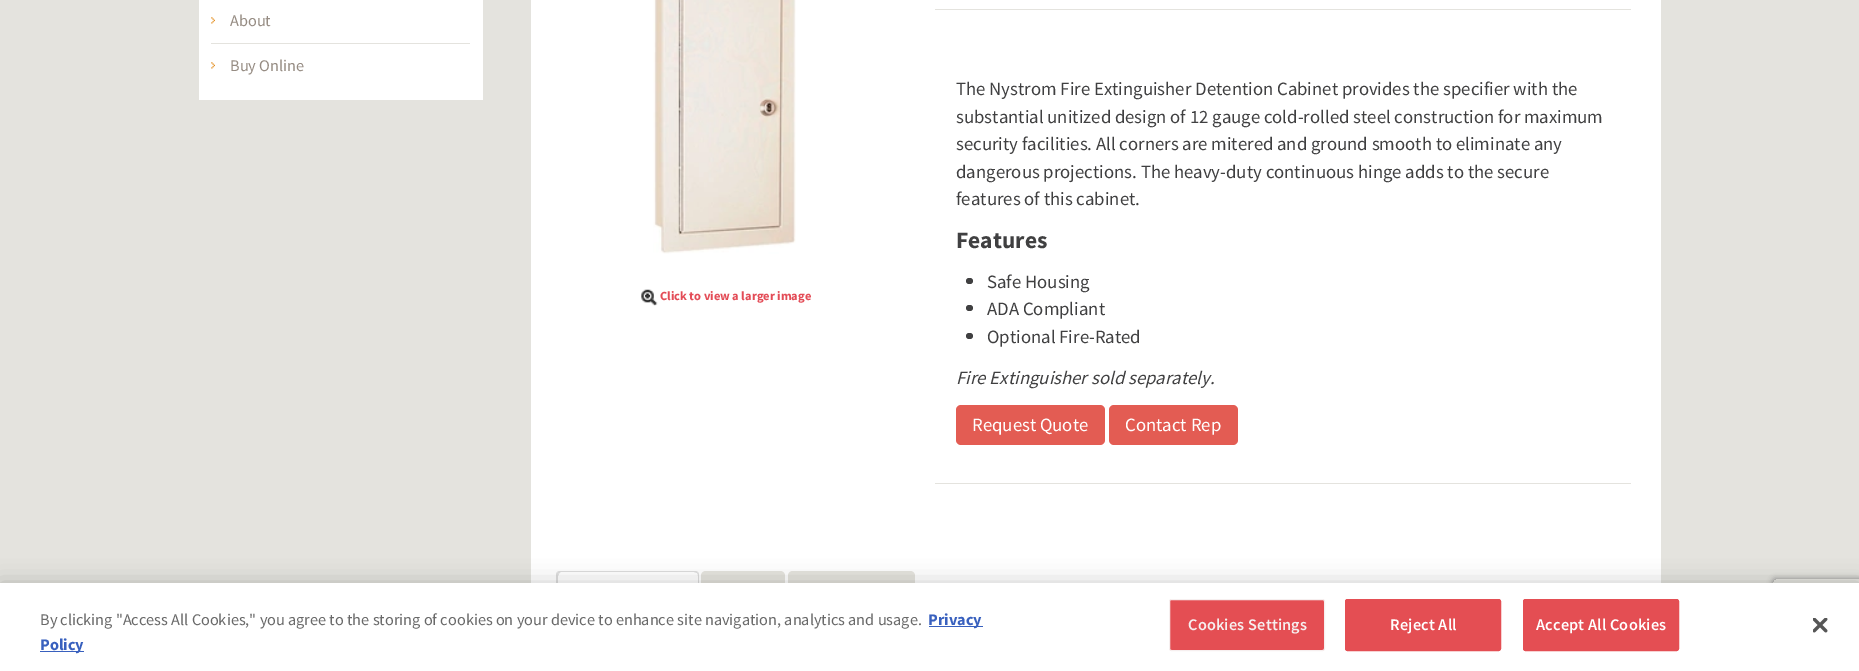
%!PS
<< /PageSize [1859 671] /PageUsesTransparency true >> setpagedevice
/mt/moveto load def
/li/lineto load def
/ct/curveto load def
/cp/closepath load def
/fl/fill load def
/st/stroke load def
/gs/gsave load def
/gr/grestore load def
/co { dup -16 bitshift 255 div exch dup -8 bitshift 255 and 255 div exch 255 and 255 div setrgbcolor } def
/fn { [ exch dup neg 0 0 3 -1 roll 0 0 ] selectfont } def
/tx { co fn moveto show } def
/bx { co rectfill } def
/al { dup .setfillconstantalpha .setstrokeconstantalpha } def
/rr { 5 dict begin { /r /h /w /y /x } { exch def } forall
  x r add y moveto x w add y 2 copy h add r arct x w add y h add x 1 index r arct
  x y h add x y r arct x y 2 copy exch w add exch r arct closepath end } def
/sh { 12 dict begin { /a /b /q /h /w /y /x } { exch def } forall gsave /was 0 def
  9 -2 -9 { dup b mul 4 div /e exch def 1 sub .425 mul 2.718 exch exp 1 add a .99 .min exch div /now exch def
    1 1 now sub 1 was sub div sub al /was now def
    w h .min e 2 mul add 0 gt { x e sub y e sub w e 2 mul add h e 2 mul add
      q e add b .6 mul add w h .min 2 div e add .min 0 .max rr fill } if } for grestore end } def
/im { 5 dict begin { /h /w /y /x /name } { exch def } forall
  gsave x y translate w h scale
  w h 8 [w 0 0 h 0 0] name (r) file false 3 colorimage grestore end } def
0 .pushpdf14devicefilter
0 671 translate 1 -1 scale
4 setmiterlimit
0 0 1859 671 16#E4E3DE bx
199 0 284 100 16#FFFFFF bx
211 43 259 1 16#E4E3DE bx
(media/1.raw) 211 17 4 7 im
(media/1.raw) 211 62 4 7 im
531 0 1130 583 16#FFFFFF bx
(media/2.raw) 653 0 143 254 im
(media/3.raw) 641 289 17 17 im
935 9 696 1 16#E4E3DE bx
935 483 696 1 16#E4E3DE bx
16#404041 co
966 278 7 6 3 rr fl
966 305 7 6 3 rr fl
966 333 7 6 3 rr fl
16#E35C53 co
956 405 149 40 5 rr fl
1109 405 129 40 5 rr fl
16#FFFFFF co
561 571 mt 694 571 li 697 571 699 573 699 576 ct 699 621 li 556 621 li 556 576 li 556 573 558 571 561 571 ct cp fl
16#DDDDDD co
561 572 mt 560 572 559 573 559 574 ct 557 572 li 559 571 li 696 571 li 698 572 li 697 573 li 694 572 li cp fl
699 621 mt 698 620 li 698 576 li 698 575 698 574 697 573 ct 698 572 li 699 574 li cp fl
556 574 mt 557 572 li 559 574 li 558 576 li 558 620 li 556 621 li cp fl
16#E5E3DD co
706 571 mt 780 571 li 783 571 785 573 785 576 ct 785 621 li 701 621 li 701 576 li 701 573 703 571 706 571 ct cp fl
793 571 mt 910 571 li 913 571 915 573 915 576 ct 915 621 li 788 621 li 788 576 li 788 573 790 571 793 571 ct cp fl
16#000000 co
0 583 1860 88 0 11 .2 sh
gs
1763 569 mt 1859 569 li 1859 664 li 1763 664 li cp 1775.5 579 mt 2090.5 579 li 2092 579 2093 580 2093 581.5 ct 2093 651.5 li 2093 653 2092 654 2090.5 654 ct 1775.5 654 li 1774 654 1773 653 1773 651.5 ct 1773 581.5 li 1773 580 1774 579 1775.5 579 ct cp eoclip newpath
16#808080 co
1773 579 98 75 2.5 3 1 sh
gr
0 583 1859 88 16#FFFFFF bx
929 626 54 1 16#3860BE bx
40 651 44 1 16#3860BE bx
16#E44E53 co
1169.5 599.5 155 51 2 rr gs fl gr
16#F6EFEF co
st
16#E44E53 co
1345.5 599.5 155 51 2 rr gs fl gr
st
1523.5 599.5 155 51 2 rr gs fl gr
st
(media/4.raw) 1813 618 15 15 im
(About) 230 26 /SourceSansPro-Regular 16.25 16#968C83 tx
(Buy Online) 230 71 /SourceSansPro-Regular 16.25 16#968C83 tx
(Click to view a larger image) 660 300 /SourceSansPro-Bold 12.5 16#E34C57 tx
(The Nystrom Fire Extinguisher Detention Cabinet provides the specifier with the) 956 95 /SourceSansPro-Regular 18.75 16#404041 tx
(substantial unitized design of 12 gauge cold-rolled steel construction for maximum) 956 123 /SourceSansPro-Regular 18.75 16#404041 tx
(security facilities. All corners are mitered and ground smooth to eliminate any) 956 150 /SourceSansPro-Regular 18.75 16#404041 tx
(dangerous projections. The heavy-duty continuous hinge adds to the secure) 956 178 /SourceSansPro-Regular 18.75 16#404041 tx
(features of this cabinet.) 956 205 /SourceSansPro-Regular 18.75 16#404041 tx
(Features) 956 248 /SourceSansPro-Bold 23.5 16#404041 tx
(Safe Housing) 987 288 /SourceSansPro-Regular 18.75 16#404041 tx
(ADA Compliant) 987 315 /SourceSansPro-Regular 18.75 16#404041 tx
(Optional Fire-Rated) 987 343 /SourceSansPro-Regular 18.75 16#404041 tx
(Fire Extinguisher sold separately.) 956 384 /SourceSansPro-Italic 18.75 16#404041 tx
(Request Quote) 972 431 /SourceSansPro-Regular 18.75 16#FFFFFF tx
(Contact Rep) 1125 431 /SourceSansPro-Regular 18.75 16#FFFFFF tx
(By clicking "Access All Cookies," you agree to the storing of cookies on your device to enhance site navigation, analytics and usage.) 40 625 /SourceSansPro-Regular 16.25 16#696969 tx
(Privacy) 928 625 /SourceSansPro-Bold 16.25 16#3860BE tx
(Policy) 40 650 /SourceSansPro-Bold 16.25 16#3860BE tx
/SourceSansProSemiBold-SemiBold 16.25 fn
16#F6EFEF co
1188 630 mt .2 0 (Cookies Settings) ashow
16#FFFFFF co
1390 630 mt .2 0 (Reject All) ashow
1536 630 mt .2 0 (Accept All Cookies) ashow
.poppdf14devicefilter showpage
